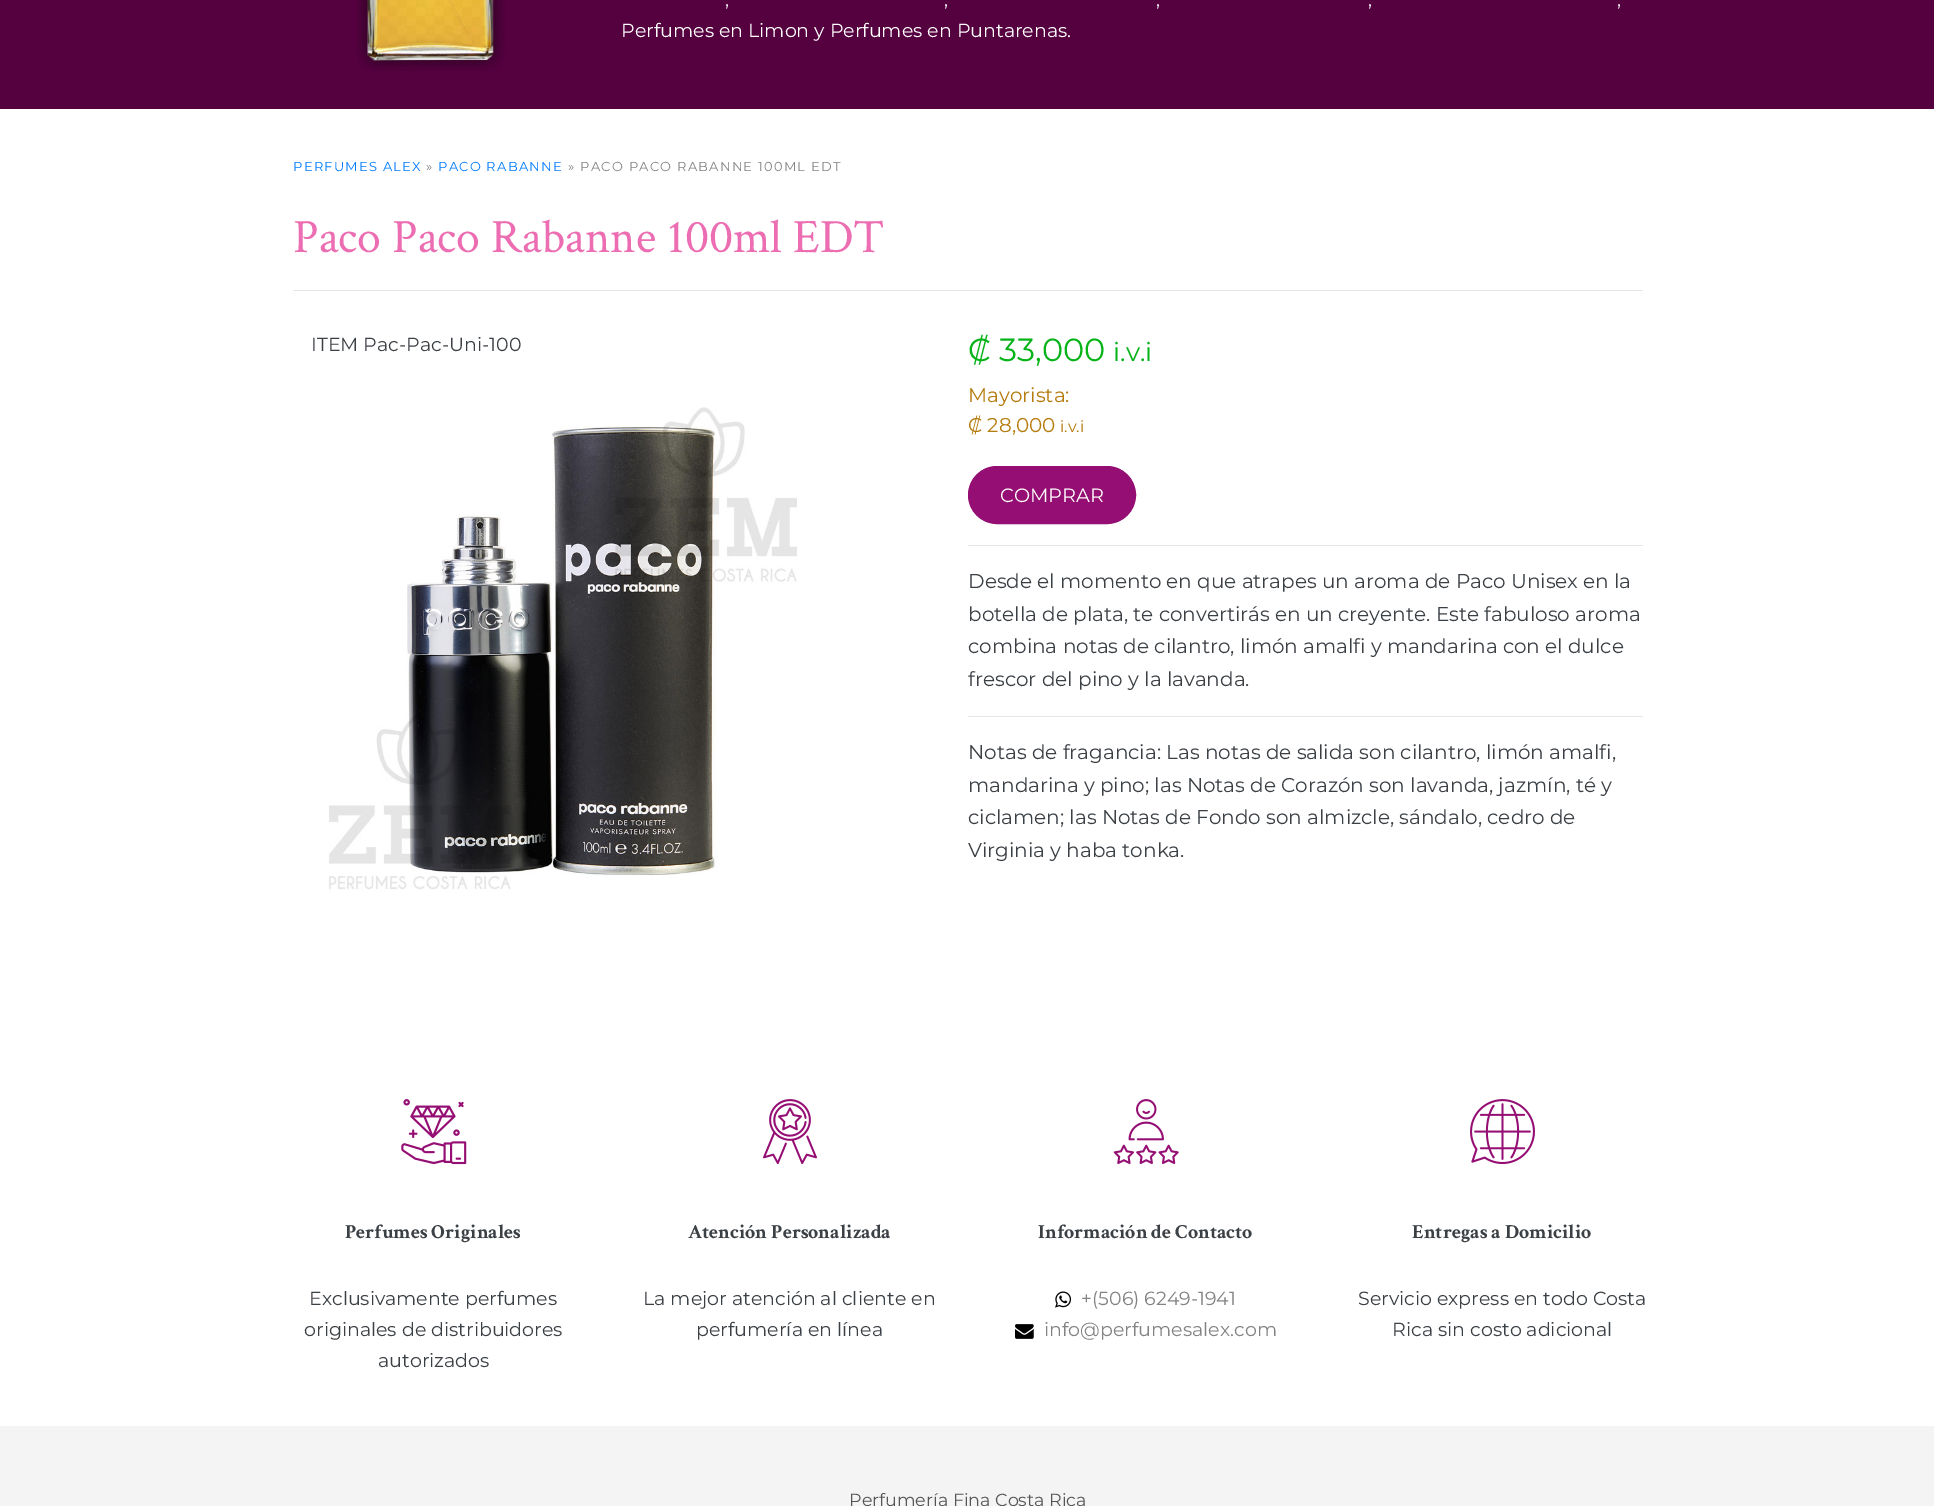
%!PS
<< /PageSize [1934 1506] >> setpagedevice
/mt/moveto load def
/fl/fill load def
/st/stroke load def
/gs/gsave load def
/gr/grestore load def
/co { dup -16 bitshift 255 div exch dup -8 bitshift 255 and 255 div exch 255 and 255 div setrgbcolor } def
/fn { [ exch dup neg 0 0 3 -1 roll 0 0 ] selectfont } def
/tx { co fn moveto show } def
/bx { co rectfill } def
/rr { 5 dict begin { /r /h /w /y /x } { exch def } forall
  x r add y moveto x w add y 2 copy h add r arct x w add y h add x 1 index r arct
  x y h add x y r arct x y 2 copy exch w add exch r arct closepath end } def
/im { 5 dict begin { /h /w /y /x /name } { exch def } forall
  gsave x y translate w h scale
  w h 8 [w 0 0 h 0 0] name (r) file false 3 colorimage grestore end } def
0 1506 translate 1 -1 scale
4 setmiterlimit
0 0 1934 1506 16#FFFFFF bx
0 0 1934 109 16#550140 bx
(media/1.raw) 357 0 148 71 im
293 290 1350 1 16#E6E6E6 bx
(media/2.raw) 328 407 469 483 im
16#950E73 co
968.5 466.5 167 57 28.5 rr gs fl gr
st
968 545 675 1 16#E6E6E6 bx
968 716 675 1 16#E6E6E6 bx
(media/3.raw) 401 1099 66 66 im
(media/4.raw) 763 1099 54 65 im
(media/5.raw) 1113 1099 66 66 im
(media/6.raw) 1055 1291 17 17 im
(media/7.raw) 1015 1324 19 15 im
(media/8.raw) 1470 1099 65 66 im
0 1426 1934 80 16#F4F4F4 bx
(,) 725 6 /Montserrat-Thin 19 16#FFFFFF tx
(,) 944 6 /Montserrat-Thin 19 16#FFFFFF tx
(,) 1156 6 /Montserrat-Thin 19 16#FFFFFF tx
(,) 1368 6 /Montserrat-Thin 19 16#FFFFFF tx
(,) 1617 6 /Montserrat-Thin 19 16#FFFFFF tx
(Perfumes en Limon y Perfumes en Puntarenas.) 621 37 /Montserrat-Thin 19 16#FFFFFF tx
/Montserrat-Thin 13 fn
16#007BFF co
293 171 mt 1.25 0 (PERFUMES ALEX) ashow
16#838383 co
426 171 mt 1.25 0 (») ashow
16#007BFF co
438 171 mt 1.25 0 (PACO RABANNE) ashow
16#838383 co
568 171 mt 1.25 0 (» PACO PACO RABANNE 100ML EDT) ashow
(Paco Paco Rabanne 100ml EDT) 293 252 /CrimsonText-Regular 48 16#EC6DB2 tx
(ITEM Pac-Pac-Uni-100) 311 351 /Montserrat-Thin 19 16#3B4045 tx
(₡ 33,000) 968 361 /Montserrat-Thin 32 16#06B319 tx
(i.v.i) 1113 361 /Montserrat-Thin 26 16#06B319 tx
(Mayorista:) 968 402 /Montserrat-Thin 20 16#B57B0D tx
(₡ 28,000) 968 432 /Montserrat-Thin 20 16#B57B0D tx
(i.v.i) 1060 432 /Montserrat-Thin 16 16#B57B0D tx
(COMPRAR) 1000 502 /Montserrat-Thin 19.25 16#FFFFFF tx
(Desde el momento en que atrapes un aroma de Paco Unisex en la) 968 588 /Montserrat-Thin 20 16#3B4045 tx
(botella de plata, te convertirás en un creyente. Este fabuloso aroma) 968 621 /Montserrat-Thin 20 16#3B4045 tx
(combina notas de cilantro, limón amalfi y mandarina con el dulce) 968 653 /Montserrat-Thin 20 16#3B4045 tx
(frescor del pino y la lavanda.) 968 686 /Montserrat-Thin 20 16#3B4045 tx
(Notas de fragancia: Las notas de salida son cilantro, limón amalfi,) 968 759 /Montserrat-Thin 20 16#3B4045 tx
(mandarina y pino; las Notas de Corazón son lavanda, jazmín, té y) 968 792 /Montserrat-Thin 20 16#3B4045 tx
(ciclamen; las Notas de Fondo son almizcle, sándalo, cedro de) 968 824 /Montserrat-Thin 20 16#3B4045 tx
(Virginia y haba tonka.) 968 857 /Montserrat-Thin 20 16#3B4045 tx
(Perfumes Originales) 345 1238 /CrimsonText-Bold 20 16#3B4045 tx
(Exclusivamente perfumes) 309 1305 /Montserrat-Thin 19 16#3B4045 tx
(originales de distribuidores) 304 1336 /Montserrat-Thin 19 16#3B4045 tx
(autorizados) 378 1367 /Montserrat-Thin 19 16#3B4045 tx
(Atención Personalizada) 688 1238 /CrimsonText-Bold 20 16#3B4045 tx
(La mejor atención al cliente en) 643 1305 /Montserrat-Thin 19 16#3B4045 tx
(perfumería en línea) 696 1336 /Montserrat-Thin 19 16#3B4045 tx
(Información de Contacto) 1038 1238 /CrimsonText-Bold 20 16#3B4045 tx
(+\(506\) 6249-1941) 1081 1305 /Montserrat-Thin 19 16#838383 tx
(info@perfumesalex.com) 1044 1336 /Montserrat-Thin 19 16#838383 tx
(Entregas a Domicilio) 1412 1238 /CrimsonText-Bold 20 16#3B4045 tx
(Servicio express en todo Costa) 1358 1305 /Montserrat-Thin 19 16#3B4045 tx
(Rica sin costo adicional) 1392 1336 /Montserrat-Thin 19 16#3B4045 tx
(Perfumería Fina Costa Rica) 849 1506 /Montserrat-Thin 17.5 16#555555 tx
showpage
